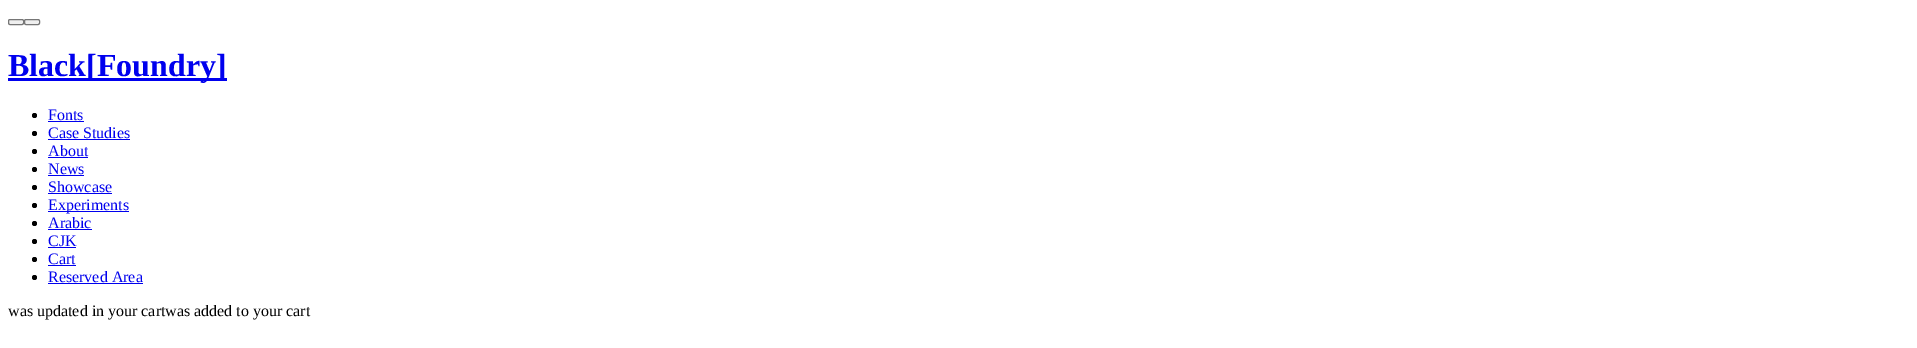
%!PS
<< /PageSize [1917 348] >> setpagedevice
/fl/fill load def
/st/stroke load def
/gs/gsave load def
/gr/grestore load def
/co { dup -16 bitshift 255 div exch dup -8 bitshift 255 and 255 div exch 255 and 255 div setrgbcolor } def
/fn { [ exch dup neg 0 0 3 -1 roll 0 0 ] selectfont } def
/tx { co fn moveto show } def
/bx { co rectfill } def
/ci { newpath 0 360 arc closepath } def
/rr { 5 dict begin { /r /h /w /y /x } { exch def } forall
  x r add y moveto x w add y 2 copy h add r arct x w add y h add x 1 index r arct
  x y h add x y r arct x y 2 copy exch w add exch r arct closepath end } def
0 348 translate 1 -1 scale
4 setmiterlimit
0 0 1917 348 16#FFFFFF bx
16#EFEFEF co
8.5 19.5 15 5 1.5 rr gs fl gr
16#767676 co
st
16#EFEFEF co
24.5 19.5 15 5 1.5 rr gs fl gr
16#767676 co
st
8 78 219 3 16#0000EE bx
16#000000 co
34.5 115.5 2.5 ci fl
48 121 36 1 16#0000EE bx
16#000000 co
34.5 133.5 2.5 ci fl
48 139 82 1 16#0000EE bx
16#000000 co
34.5 151.5 2.5 ci fl
48 157 40 1 16#0000EE bx
16#000000 co
34.5 169.5 2.5 ci fl
48 175 36 1 16#0000EE bx
16#000000 co
34.5 187.5 2.5 ci fl
48 193 64 1 16#0000EE bx
16#000000 co
34.5 205.5 2.5 ci fl
48 211 81 1 16#0000EE bx
16#000000 co
34.5 223.5 2.5 ci fl
48 229 44 1 16#0000EE bx
16#000000 co
34.5 241.5 2.5 ci fl
48 247 28 1 16#0000EE bx
16#000000 co
34.5 259.5 2.5 ci fl
48 265 28 1 16#0000EE bx
16#000000 co
34.5 277.5 2.5 ci fl
48 283 95 1 16#0000EE bx
(Black[Foundry]) 8 76 /LiberationSerif-Bold 32 16#0000EE tx
(Fonts) 48 120 /LiberationSerif-Regular 16 16#0000EE tx
(Case Studies) 48 138 /LiberationSerif-Regular 16 16#0000EE tx
(About) 48 156 /LiberationSerif-Regular 16 16#0000EE tx
(News) 48 174 /LiberationSerif-Regular 16 16#0000EE tx
(Showcase) 48 192 /LiberationSerif-Regular 16 16#0000EE tx
(Experiments) 48 210 /LiberationSerif-Regular 16 16#0000EE tx
(Arabic) 48 228 /LiberationSerif-Regular 16 16#0000EE tx
(CJK) 48 246 /LiberationSerif-Regular 16 16#0000EE tx
(Cart) 48 264 /LiberationSerif-Regular 16 16#0000EE tx
(Reserved Area) 48 282 /LiberationSerif-Regular 16 16#0000EE tx
(was updated in your cartwas added to your cart) 8 316 /LiberationSerif-Regular 16 16#000000 tx
showpage
